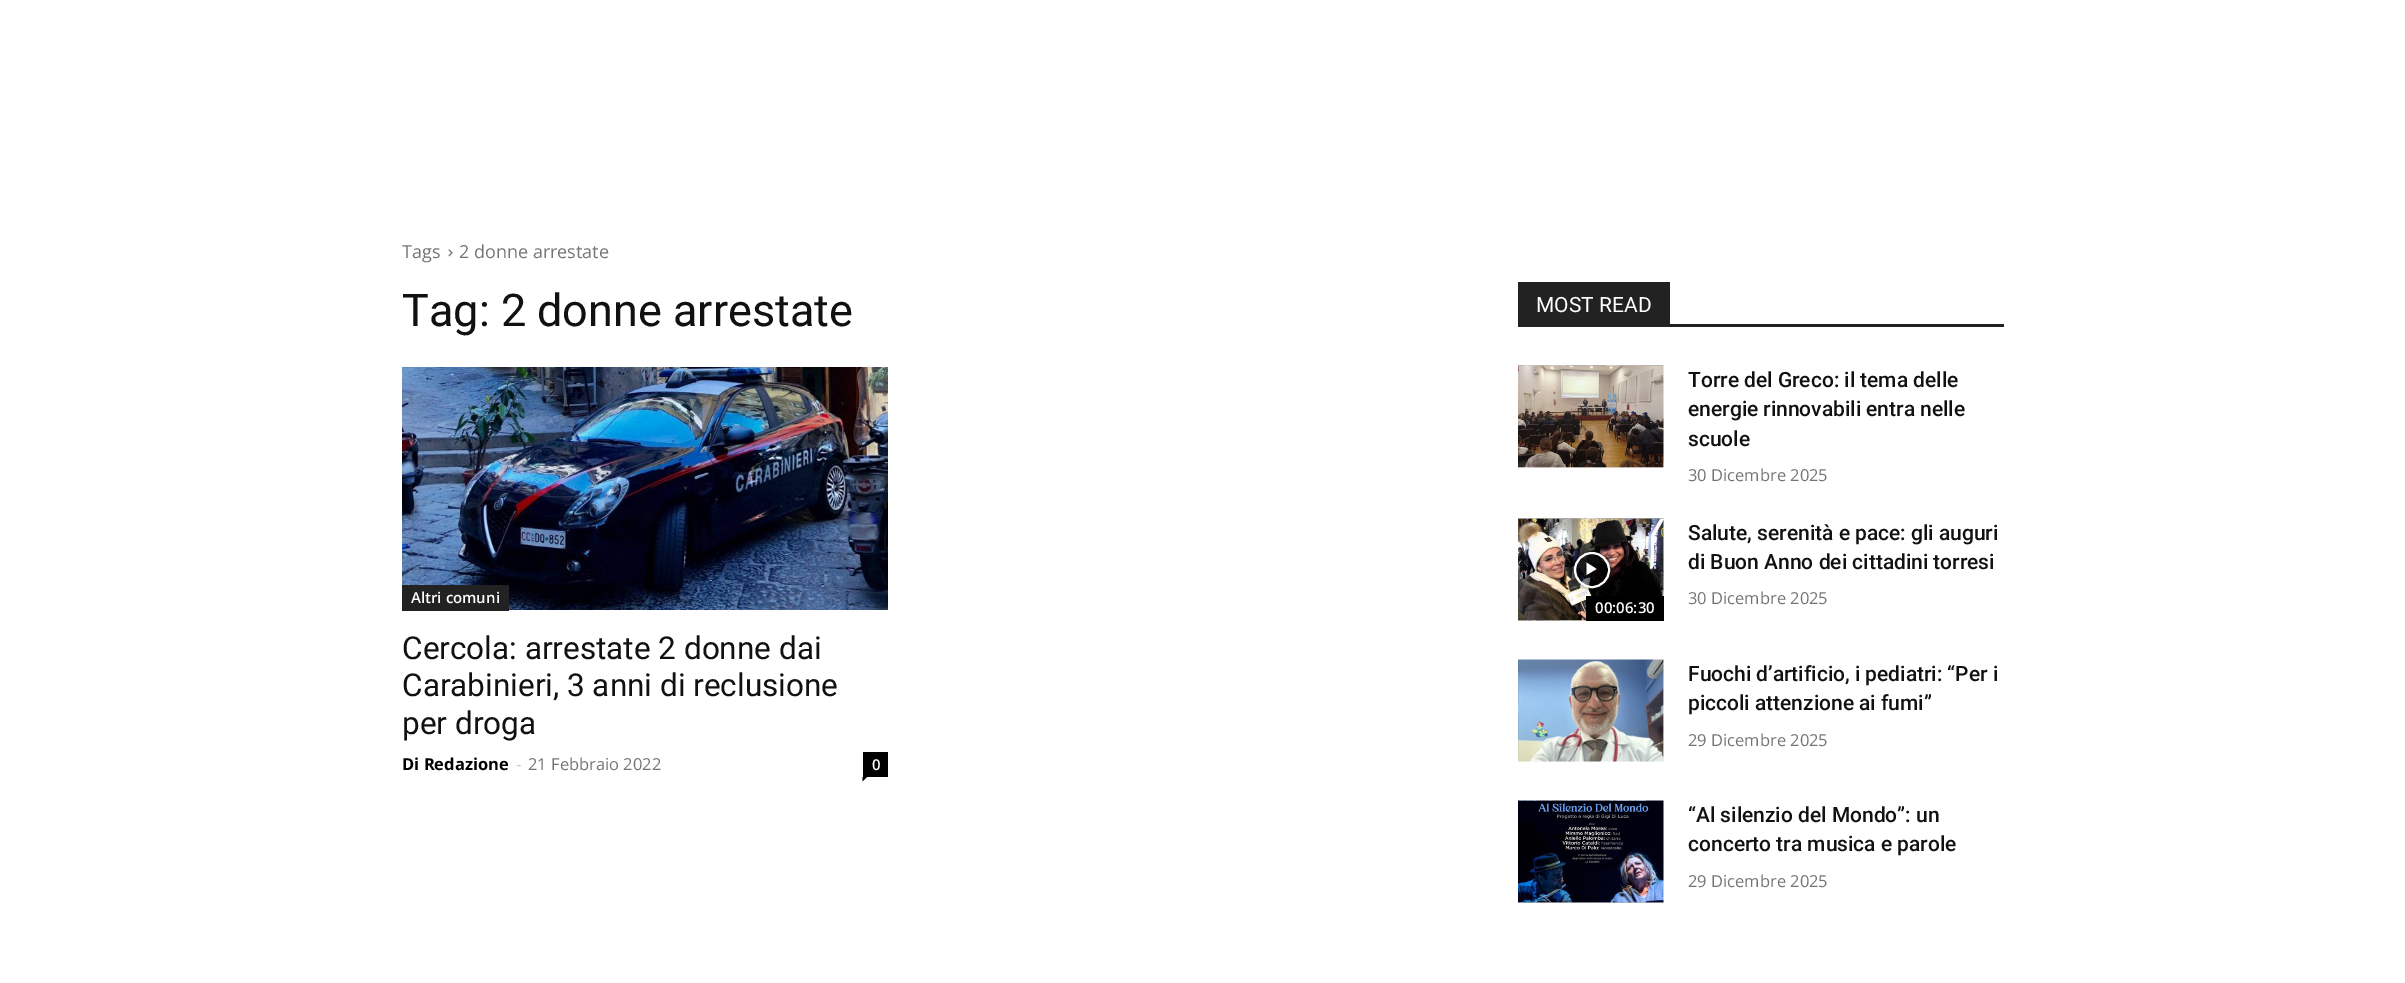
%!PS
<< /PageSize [2405 983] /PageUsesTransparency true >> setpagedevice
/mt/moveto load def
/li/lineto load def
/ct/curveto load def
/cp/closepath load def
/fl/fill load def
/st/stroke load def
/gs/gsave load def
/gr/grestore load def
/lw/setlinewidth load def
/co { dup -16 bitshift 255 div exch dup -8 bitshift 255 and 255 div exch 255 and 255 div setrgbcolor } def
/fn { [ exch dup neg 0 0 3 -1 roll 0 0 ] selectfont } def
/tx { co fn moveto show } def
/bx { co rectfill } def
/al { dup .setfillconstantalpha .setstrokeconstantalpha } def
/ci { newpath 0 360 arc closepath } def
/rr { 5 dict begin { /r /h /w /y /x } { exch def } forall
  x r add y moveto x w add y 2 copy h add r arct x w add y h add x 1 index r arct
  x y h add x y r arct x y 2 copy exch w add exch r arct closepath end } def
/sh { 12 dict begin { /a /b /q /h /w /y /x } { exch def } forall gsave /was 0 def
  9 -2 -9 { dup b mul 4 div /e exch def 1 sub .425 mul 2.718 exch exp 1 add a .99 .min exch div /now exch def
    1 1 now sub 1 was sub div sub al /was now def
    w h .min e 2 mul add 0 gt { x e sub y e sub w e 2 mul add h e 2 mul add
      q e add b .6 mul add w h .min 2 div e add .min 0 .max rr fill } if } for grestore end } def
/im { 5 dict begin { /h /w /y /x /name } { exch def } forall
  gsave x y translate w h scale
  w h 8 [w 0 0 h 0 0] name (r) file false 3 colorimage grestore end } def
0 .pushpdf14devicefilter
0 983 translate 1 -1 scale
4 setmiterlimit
0 0 2405 983 16#FFFFFF bx
(media/1.raw) 448 249 5 8 im
(media/2.raw) 402 367 486 243 im
402 585 107 26 16#222222 bx
863 752 25 25 16#000000 bx
862.5 777 mt 867 777 li 862.5 781.5 li cp fl
1518 324 486 3 16#222222 bx
1518 282 152 42 16#222222 bx
(media/3.raw) 1518 365 146 103 im
(media/4.raw) 1518 518 146 103 im
gs
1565 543 mt 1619 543 li 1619 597 li 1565 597 li cp 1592 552 mt 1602 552 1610 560 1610 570 ct 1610 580 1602 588 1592 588 ct 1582 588 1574 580 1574 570 ct 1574 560 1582 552 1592 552 ct cp eoclip newpath
16#000000 co
1574 552 36 36 18 2.5 .4 sh
gr
0.48 al
16#000000 co
1592 570 17 ci fl
1 al
16#FFFFFF co
2 lw
1592 570 17 ci st
1586.5 562.5 mt 1586.5 575 li 1596.5 569 li cp fl
1586 596 78 25 16#000000 bx
(media/5.raw) 1518 659 146 103 im
(media/6.raw) 1518 800 146 103 im
(Tags) 402 258 /OpenSans-Regular 18 16#747474 tx
(2 donne arrestate) 459 258 /OpenSans-Regular 18 16#747474 tx
(Tag: 2 donne arrestate) 402 326 /Roboto-Regular 45 16#111111 tx
(Altri comuni) 411 603 /OpenSans-SemiBold 15 16#FFFFFF tx
(Cercola: arrestate 2 donne dai) 402 659 /Roboto-Regular 31.5 16#111111 tx
(Carabinieri, 3 anni di reclusione) 402 696 /Roboto-Regular 31.5 16#111111 tx
(per droga) 402 734 /Roboto-Regular 31.5 16#111111 tx
(Di Redazione) 402 770 /OpenSans-Bold 16.5 16#000000 tx
(-) 516 770 /OpenSans-Regular 16.5 16#CCCCCC tx
(21 Febbraio 2022) 528 770 /OpenSans-Regular 16.5 16#747474 tx
(0) 872 770 /OpenSans-SemiBold 15 16#FFFFFF tx
(MOST READ) 1536 312 /Roboto-Regular 21 16#FFFFFF tx
(Torre del Greco: il tema delle) 1688 387 /Roboto-Medium 21 16#111111 tx
(energie rinnovabili entra nelle) 1688 416 /Roboto-Medium 21 16#111111 tx
(scuole) 1688 446 /Roboto-Medium 21 16#111111 tx
(30 Dicembre 2025) 1688 481 /OpenSans-Regular 16.5 16#747474 tx
(Salute, serenità e pace: gli auguri) 1688 540 /Roboto-Medium 21 16#111111 tx
(di Buon Anno dei cittadini torresi) 1688 569 /Roboto-Medium 21 16#111111 tx
(30 Dicembre 2025) 1688 604 /OpenSans-Regular 16.5 16#747474 tx
(00:06:30) 1595 613 /OpenSans-SemiBold 15 16#FFFFFF tx
(Fuochi d’artificio, i pediatri: “Per i) 1688 681 /Roboto-Medium 21 16#111111 tx
(piccoli attenzione ai fumi”) 1688 710 /Roboto-Medium 21 16#111111 tx
(29 Dicembre 2025) 1688 746 /OpenSans-Regular 16.5 16#747474 tx
(“Al silenzio del Mondo”: un) 1688 822 /Roboto-Medium 21 16#111111 tx
(concerto tra musica e parole) 1688 851 /Roboto-Medium 21 16#111111 tx
(29 Dicembre 2025) 1688 887 /OpenSans-Regular 16.5 16#747474 tx
.poppdf14devicefilter showpage
